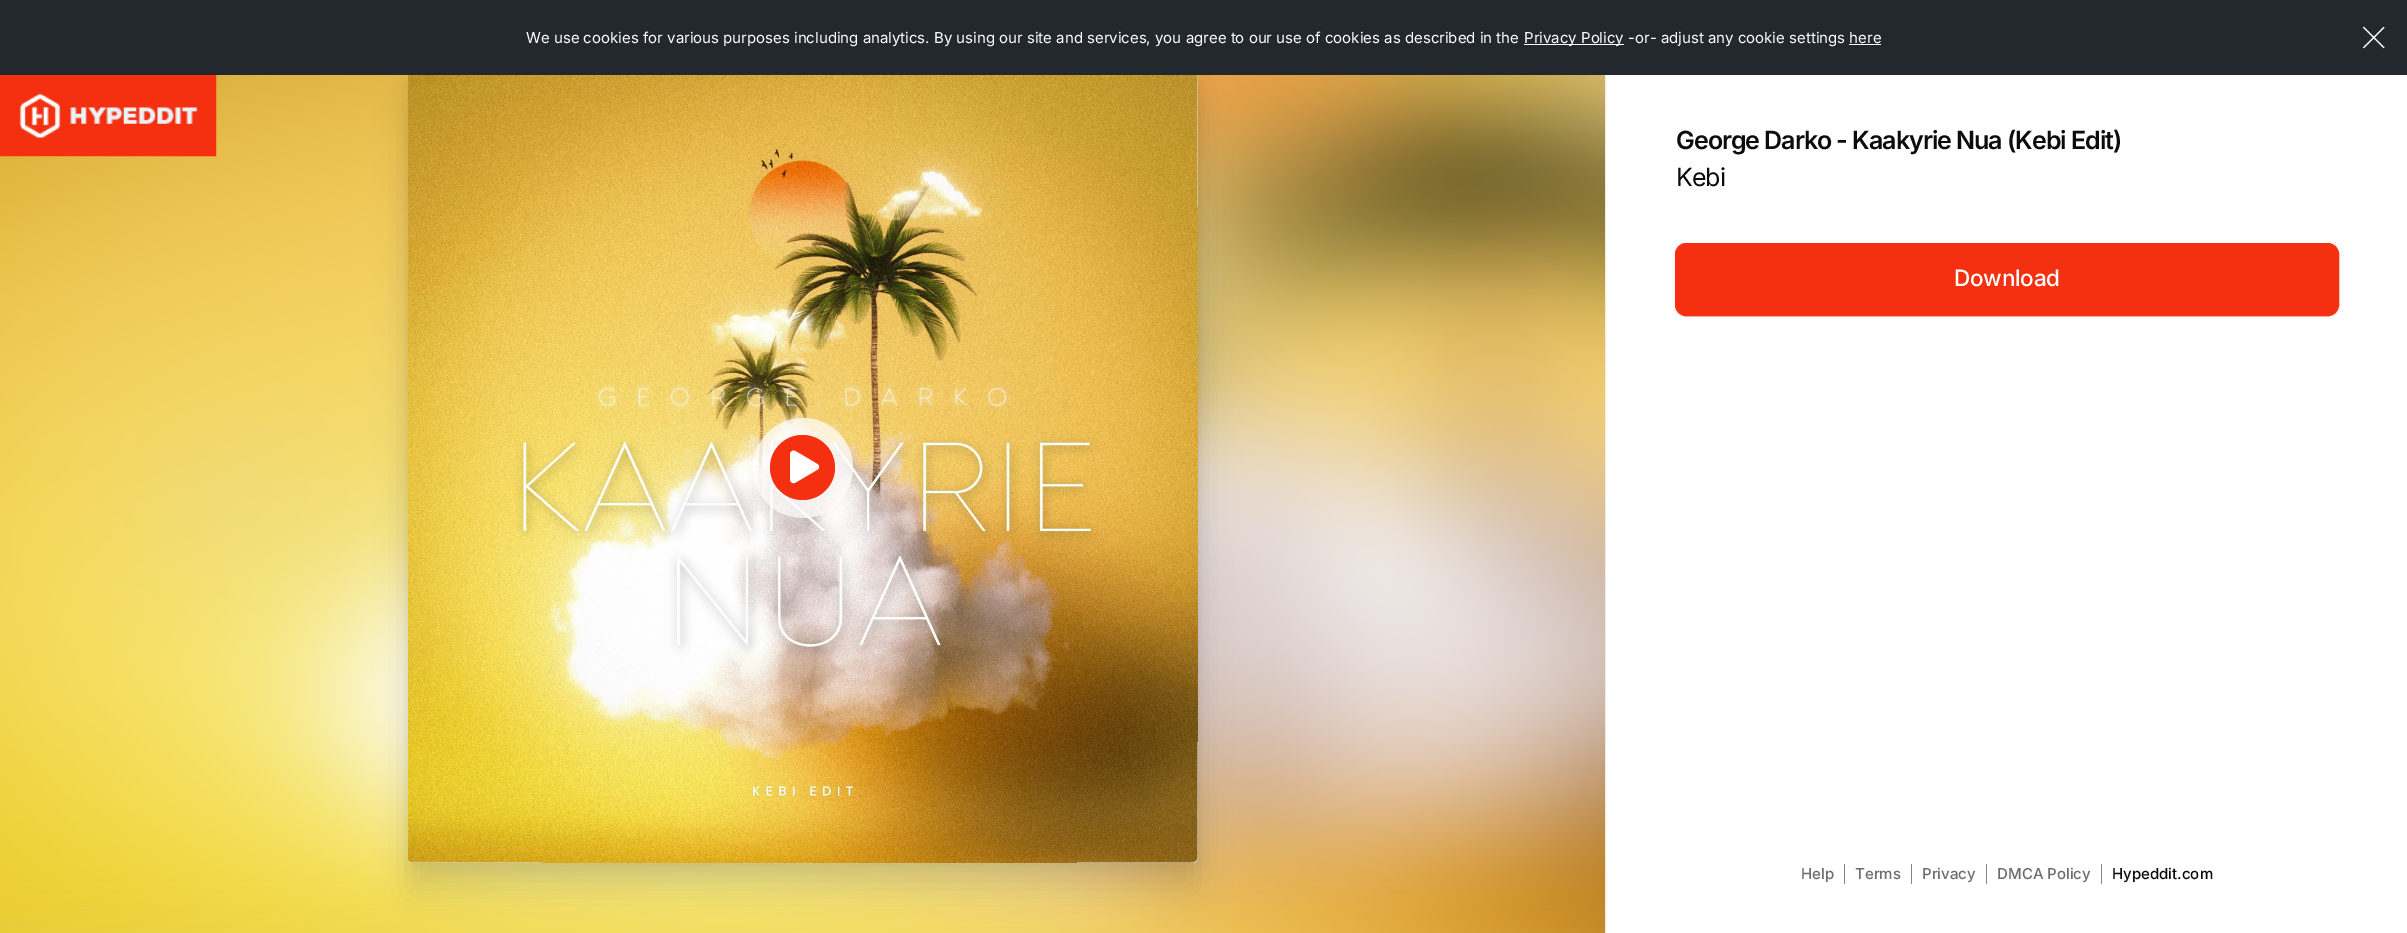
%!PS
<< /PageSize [2407 933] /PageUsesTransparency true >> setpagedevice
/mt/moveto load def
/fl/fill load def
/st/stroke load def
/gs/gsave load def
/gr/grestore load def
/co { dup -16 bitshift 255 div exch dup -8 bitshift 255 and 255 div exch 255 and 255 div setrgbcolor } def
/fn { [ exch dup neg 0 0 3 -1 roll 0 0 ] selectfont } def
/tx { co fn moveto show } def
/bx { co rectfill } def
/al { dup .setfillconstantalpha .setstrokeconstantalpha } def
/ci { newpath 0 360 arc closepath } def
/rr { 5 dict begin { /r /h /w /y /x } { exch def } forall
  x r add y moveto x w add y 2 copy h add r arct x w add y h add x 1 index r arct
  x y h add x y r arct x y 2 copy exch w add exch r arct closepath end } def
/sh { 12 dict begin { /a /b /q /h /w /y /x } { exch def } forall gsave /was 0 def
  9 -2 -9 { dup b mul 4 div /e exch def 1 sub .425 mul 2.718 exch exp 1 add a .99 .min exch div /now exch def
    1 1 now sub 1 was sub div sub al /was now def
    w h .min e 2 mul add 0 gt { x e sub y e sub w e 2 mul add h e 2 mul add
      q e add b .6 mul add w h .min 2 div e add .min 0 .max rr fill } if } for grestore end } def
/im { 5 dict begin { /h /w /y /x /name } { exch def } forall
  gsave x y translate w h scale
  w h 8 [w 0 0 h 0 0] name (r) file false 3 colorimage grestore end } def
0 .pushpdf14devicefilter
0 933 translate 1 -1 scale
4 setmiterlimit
0 0 2407 933 16#FFFFFF bx
(media/3.raw) 0 75 1605 858 im
16#000000 co
408 80 790 790 5 9 .1 sh
408 105 790 790 5 16 .09 sh
16#E6E6E6 co
408 73 790 790 5 rr fl
0 0 2407 75 16#22282E bx
1524 44 100 1 16#FFFFFF bx
1849 44 32 1 16#FFFFFF bx
(media/1.raw) 2362 26 23 23 im
(media/2.raw) 0 75 217 82 im
1605 75 1 858 16#EBEBEB bx
(media/4.raw) 408 75 790 788 im
0.7 al
16#FFFFFF co
803 468 50 ci fl
1 al
16#F43010 co
802.5 467.5 32.5 ci fl
(media/5.raw) 790 450 30 34 im
16#A8210B co
1676 245 662 71 10 1 .5 sh
16#F43010 co
1675.5 243.5 663 72 10.5 rr st
1676.5 244.5 661 70 9.5 rr gs fl gr
st
1844 864 1 20 16#868686 bx
1911 864 1 20 16#868686 bx
1986 864 1 20 16#868686 bx
2101 864 1 20 16#868686 bx
(We use cookies for various purposes including analytics. By using our site and services, you agree to our use of cookies as described in the) 526 43 /Inter-Regular 15 16#FFFFFF tx
(Privacy Policy -or- adjust any cookie settings here) 1524 43 /Inter-Regular 15 16#FFFFFF tx
/Inter-SemiBold 25 fn
16#0D0C0C co
1676 149 mt -1 0 (George Darko - Kaakyrie Nua \(Kebi Edit\)) ashow
/Inter-Regular 25 fn
1676 186 mt -1 0 (Kebi) ashow
/Inter-Medium 22.5 fn
16#FFFFFF co
1954 286 mt -.25 0 (Download) ashow
(Help) 1801 879 /Inter-Medium 15 16#6E6D6D tx
(Terms) 1855 879 /Inter-Medium 15 16#6E6D6D tx
(Privacy) 1922 879 /Inter-Medium 15 16#6E6D6D tx
(DMCA Policy) 1997 879 /Inter-Medium 15 16#6E6D6D tx
(Hypeddit.com) 2112 879 /Inter-Medium 15 16#0D0C0C tx
.poppdf14devicefilter showpage
